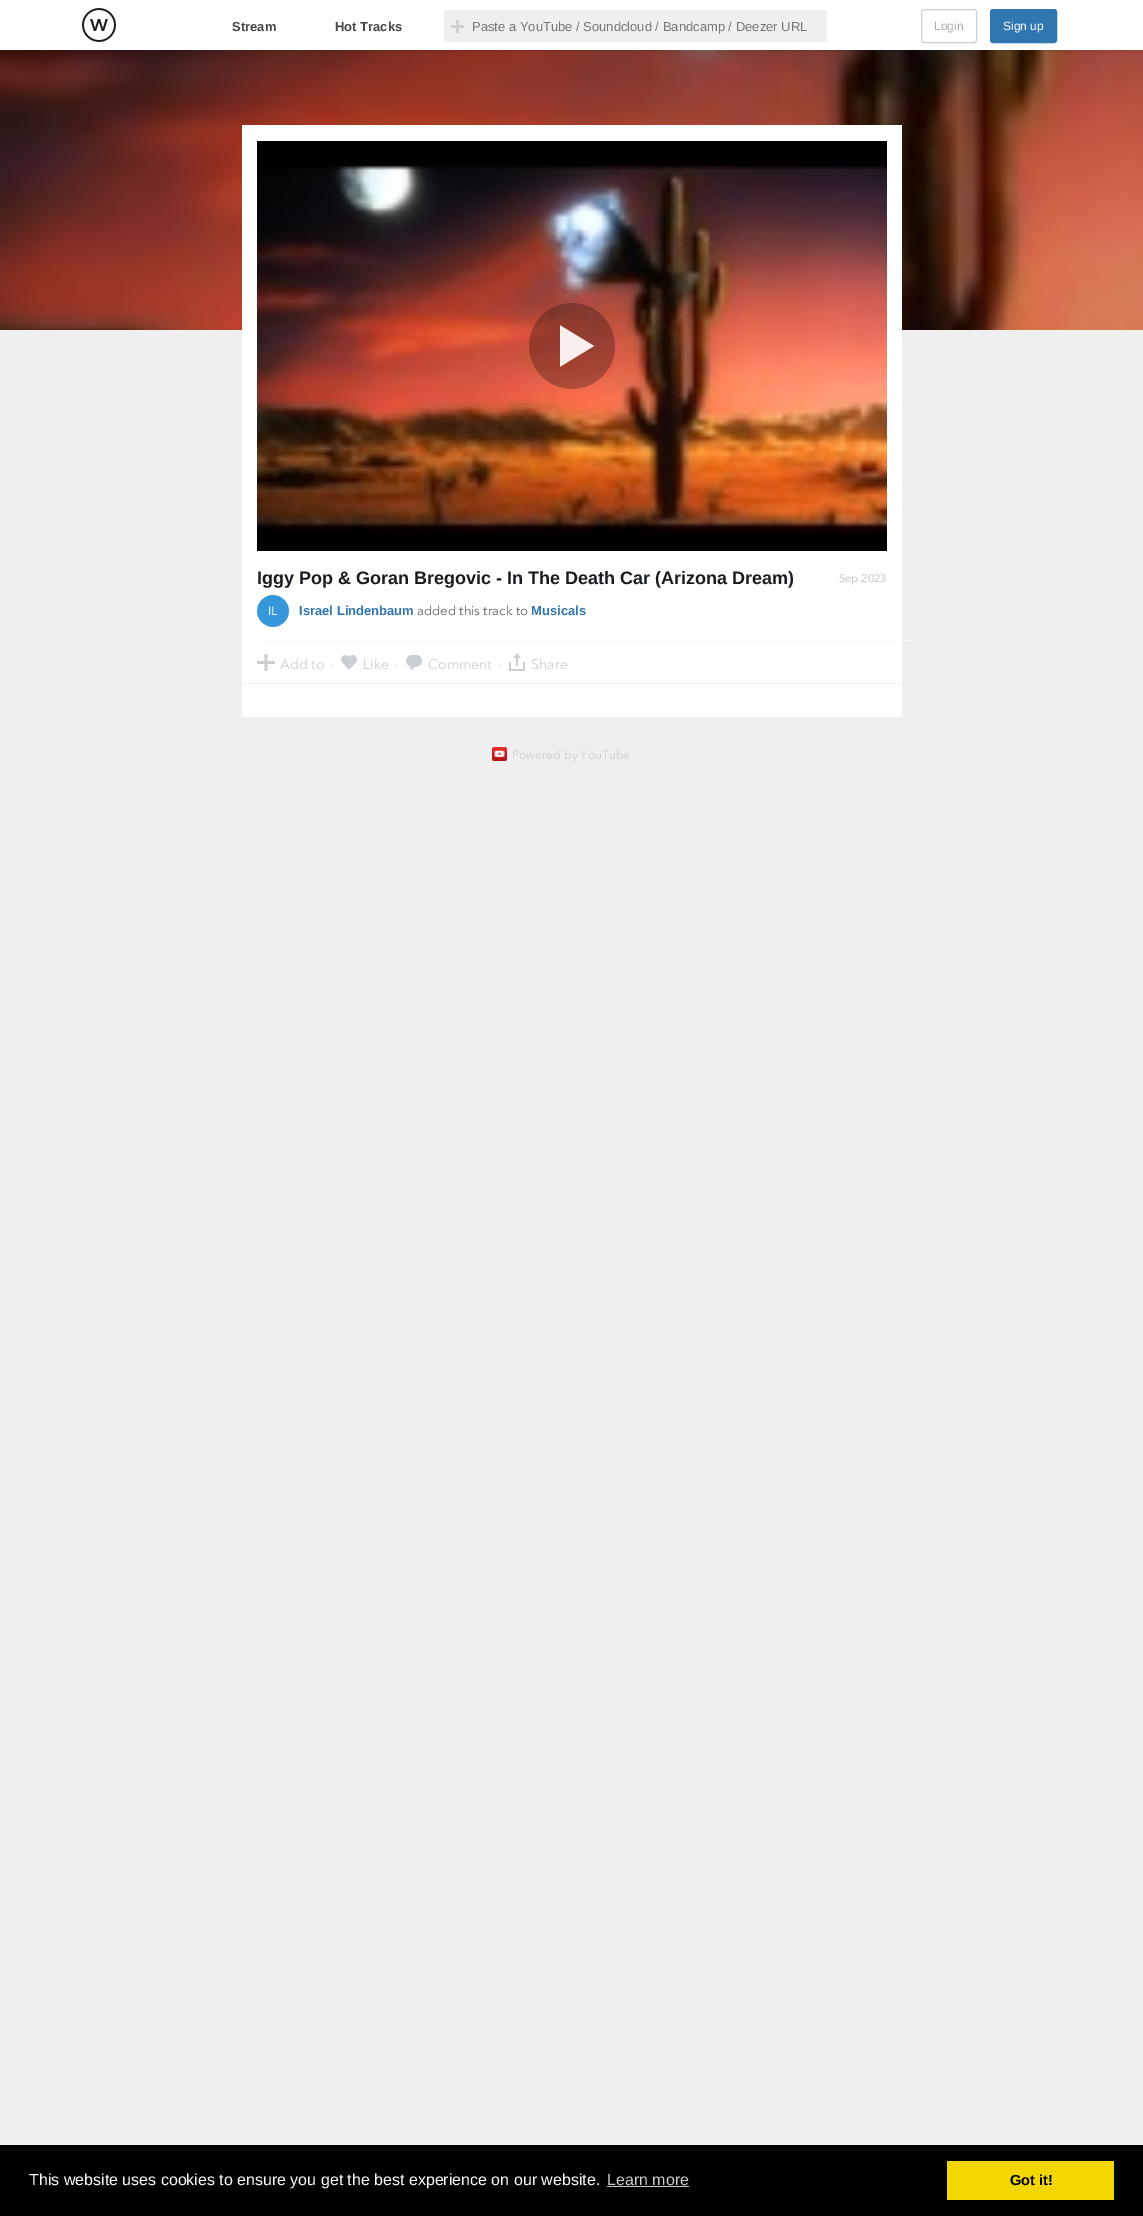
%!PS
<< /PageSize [1143 2216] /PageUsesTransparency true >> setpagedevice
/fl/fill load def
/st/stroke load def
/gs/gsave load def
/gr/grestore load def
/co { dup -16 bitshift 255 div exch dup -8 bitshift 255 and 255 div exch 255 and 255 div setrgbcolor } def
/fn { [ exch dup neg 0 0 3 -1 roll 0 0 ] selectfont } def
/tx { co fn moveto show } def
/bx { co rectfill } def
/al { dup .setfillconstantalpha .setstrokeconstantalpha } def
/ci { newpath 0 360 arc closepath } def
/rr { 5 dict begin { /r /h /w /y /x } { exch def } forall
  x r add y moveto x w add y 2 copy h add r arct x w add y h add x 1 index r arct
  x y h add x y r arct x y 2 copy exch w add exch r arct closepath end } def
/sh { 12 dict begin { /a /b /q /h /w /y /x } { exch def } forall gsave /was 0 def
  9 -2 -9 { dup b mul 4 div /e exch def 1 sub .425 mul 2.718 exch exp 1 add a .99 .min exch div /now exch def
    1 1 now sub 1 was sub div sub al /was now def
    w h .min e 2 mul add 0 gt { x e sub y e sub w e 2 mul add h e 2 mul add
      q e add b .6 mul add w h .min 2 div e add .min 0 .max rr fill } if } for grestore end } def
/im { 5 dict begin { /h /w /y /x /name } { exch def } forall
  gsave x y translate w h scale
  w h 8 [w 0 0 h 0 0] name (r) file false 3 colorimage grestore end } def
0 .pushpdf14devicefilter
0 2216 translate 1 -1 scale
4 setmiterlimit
0 0 1143 2216 16#EFEFEF bx
(media/3.raw) 0 50 1143 280 im
16#000000 co
0 1 1143 50 0 1.5 .1 sh
0 0 1143 50 16#FFFFFF bx
(media/1.raw) 82 8 34 34 im
16#EFEFEF co
444 10 383 32 2 rr fl
(media/2.raw) 451 20 13 13 im
16#CBCED2 co
921.5 9.5 55 33 2.5 rr st
16#3177AF co
990.5 9.5 66 33 2.5 rr gs fl gr
st
242 125 660 592 16#FFFFFF bx
(media/4.raw) 257 141 630 410 im
(media/5.raw) 529 303 86 86 im
257 640 660 1 16#F6F8F9 bx
16#EFEFEF co
273 611 16 ci fl
(media/6.raw) 257 595 32 32 im
(media/7.raw) 257 654 18 17 im
(media/8.raw) 341 655 16 15 im
(media/9.raw) 406 655 16 15 im
(media/10.raw) 509 653 16 18 im
242 683 660 1 16#EFEFEF bx
(media/11.raw) 492 747 15 14 im
0 2145 1143 71 16#000000 bx
607 2186 82 1 16#CCCCCC bx
947 2161 167 39 16#F1D600 bx
(Stream) 232 31 /LiberationSans-Bold 13 16#474747 tx
(Hot Tracks) 335 31 /LiberationSans-Bold 13 16#474747 tx
(Paste a YouTube / Soundcloud / Bandcamp / Deezer URL) 472 31 /LiberationSans-Regular 13 16#757575 tx
(Login) 934 30 /LiberationSans-Regular 12 16#A5ACB1 tx
(Sign up) 1003 30 /LiberationSans-Regular 12 16#FFFFFF tx
(Iggy Pop & Goran Bregovic - In The Death Car \(Arizona Dream\)) 257 584 /LiberationSans-Bold 18 16#181B1F tx
(Sep 2023) 839 582 /AvenirNext-Regular 11 16#BBBBBB tx
(Israel Lindenbaum) 299 615 /LiberationSans-Bold 13 16#3177AF tx
(added this track to) 417 615 /AvenirNext-Regular 13 16#5F5F5F tx
(Musicals) 531 615 /LiberationSans-Bold 13 16#3177AF tx
(Add to) 280 669 /AvenirNext-Regular 14 16#CBCED2 tx
(·) 330 669 /AvenirNext-Regular 12 16#CBCED2 tx
(Like) 363 669 /AvenirNext-Regular 14 16#CBCED2 tx
(·) 395 669 /AvenirNext-Regular 12 16#CBCED2 tx
(Comment) 428 669 /AvenirNext-Regular 14 16#CBCED2 tx
(·) 498 669 /AvenirNext-Regular 12 16#CBCED2 tx
(Share) 531 669 /AvenirNext-Regular 14 16#CBCED2 tx
(Powered by YouTube) 512 759 /AvenirNext-Regular 12 16#CBCED2 tx
(This website uses cookies to ensure you get the best experience on our website.) 29 2185 /LiberationSans-Regular 16 16#FFFFFF tx
(Learn more) 607 2185 /LiberationSans-Regular 16 16#CCCCCC tx
(Got it!) 1010 2185 /LiberationSans-Bold 14.5 16#000000 tx
.poppdf14devicefilter showpage
